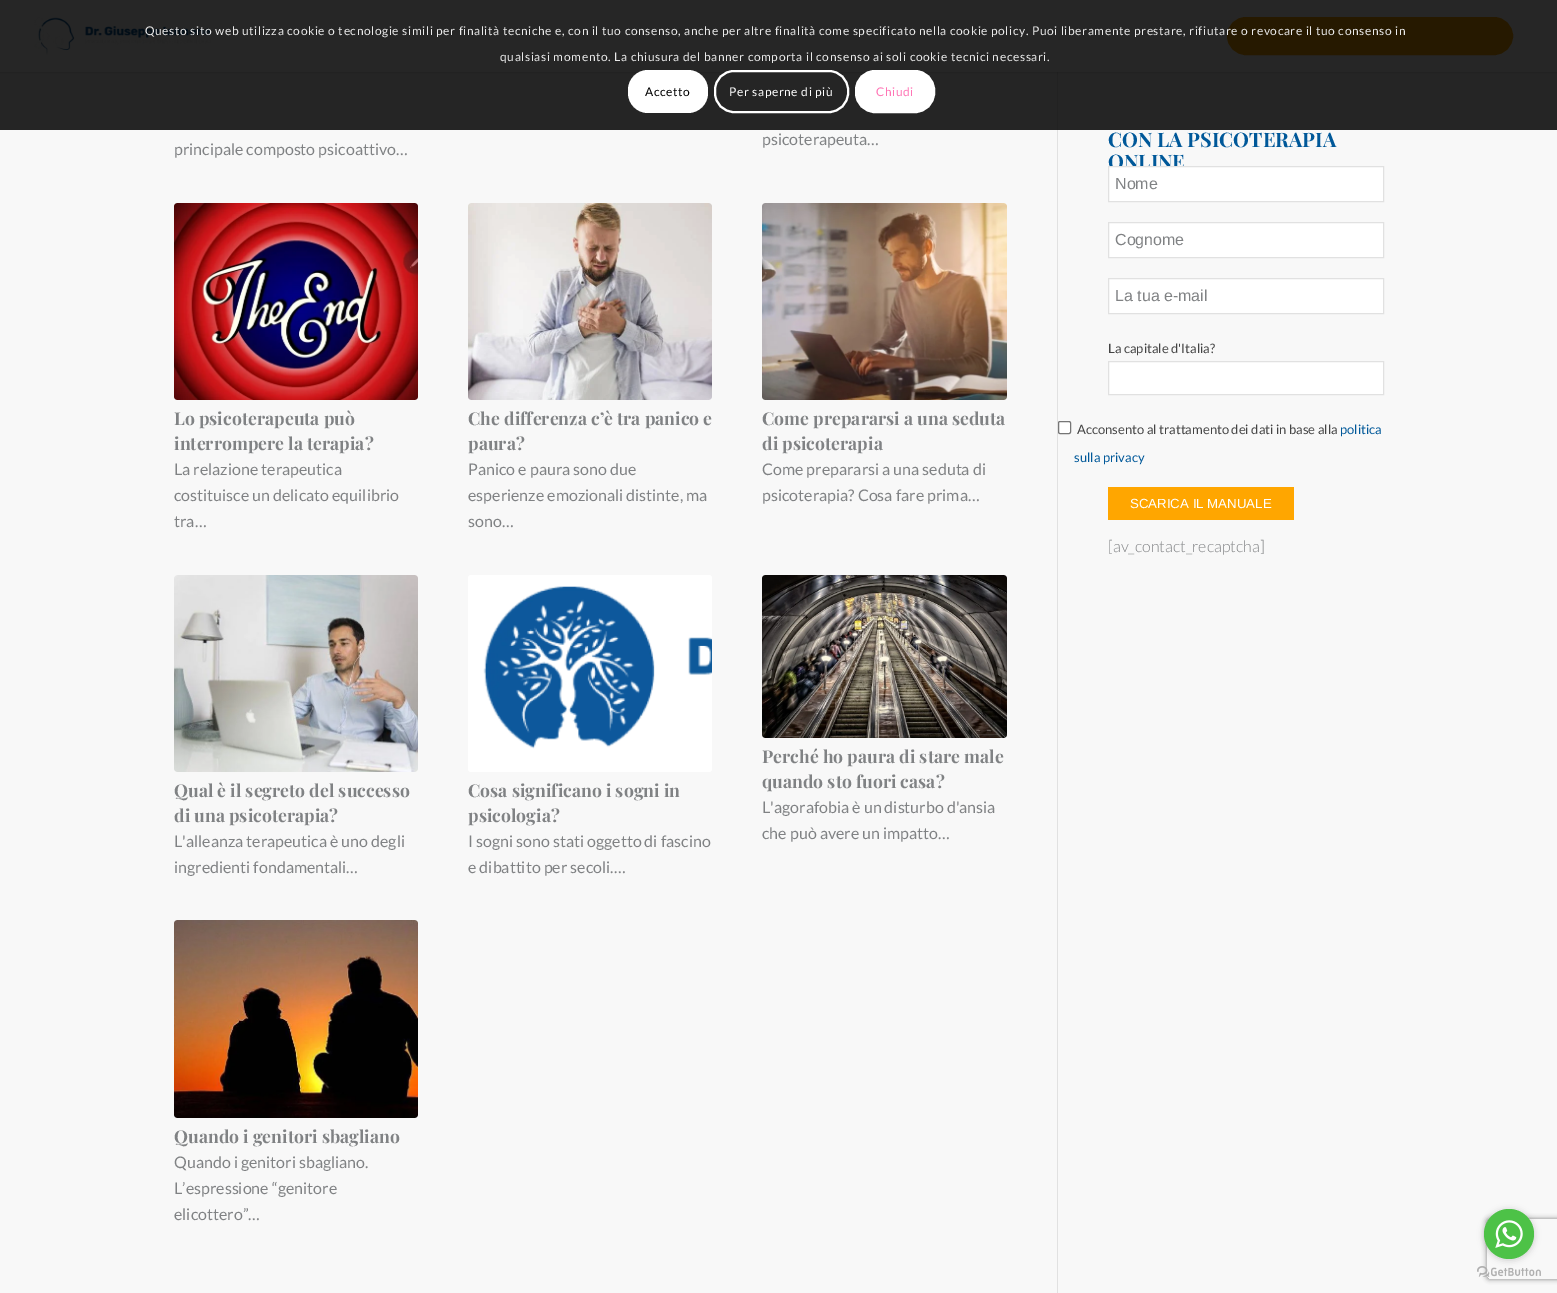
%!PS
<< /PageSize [1557 1293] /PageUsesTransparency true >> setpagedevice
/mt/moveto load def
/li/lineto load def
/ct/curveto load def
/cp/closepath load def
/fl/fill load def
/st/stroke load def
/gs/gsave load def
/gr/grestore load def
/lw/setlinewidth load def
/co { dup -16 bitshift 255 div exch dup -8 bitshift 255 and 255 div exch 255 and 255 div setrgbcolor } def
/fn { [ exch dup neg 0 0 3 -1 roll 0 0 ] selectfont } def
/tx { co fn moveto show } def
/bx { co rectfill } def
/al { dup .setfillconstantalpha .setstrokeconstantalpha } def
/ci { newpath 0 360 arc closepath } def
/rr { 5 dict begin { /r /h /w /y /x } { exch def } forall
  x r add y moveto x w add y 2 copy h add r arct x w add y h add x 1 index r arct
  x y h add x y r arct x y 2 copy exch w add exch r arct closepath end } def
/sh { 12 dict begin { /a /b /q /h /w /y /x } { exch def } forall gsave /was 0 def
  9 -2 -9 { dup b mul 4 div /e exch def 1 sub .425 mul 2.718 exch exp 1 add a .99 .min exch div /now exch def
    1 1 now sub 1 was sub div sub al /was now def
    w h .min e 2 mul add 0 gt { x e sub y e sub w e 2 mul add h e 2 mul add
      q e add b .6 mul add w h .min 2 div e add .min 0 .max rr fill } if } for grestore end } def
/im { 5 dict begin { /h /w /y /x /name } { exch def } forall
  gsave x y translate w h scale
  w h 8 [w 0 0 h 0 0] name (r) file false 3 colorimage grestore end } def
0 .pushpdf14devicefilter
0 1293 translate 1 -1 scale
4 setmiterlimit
0 0 1557 1293 16#F8F8F8 bx
1057 72 1 1221 16#E1E1E1 bx
16#000000 co
-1 -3 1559 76 0 1 .1 sh
0 0 1557 72 16#FFFFFF bx
(media/1.raw) 34 17 178 38 im
16#FFA600 co
1228 18 284 36 18 rr gs fl gr
2 lw
st
0.85 al
0 0 1557 130 16#000000 bx
1 al
16#FFFFFF co
628 70 80 43 20 rr fl
715 71 133 41 19 rr st
856 71 78 41 19 rr gs fl gr
st
174 203 244 197 3 rr fl
(media/2.raw) 174 203 244 197 im
468 203 244 197 3 rr fl
(media/3.raw) 468 203 244 197 im
762 203 245 197 3 rr fl
(media/4.raw) 762 203 245 197 im
174 575 244 197 3 rr fl
(media/5.raw) 174 575 244 197 im
468 575 244 197 3 rr fl
(media/6.raw) 483 586 229 163 im
762 575 245 163 3 rr fl
(media/7.raw) 762 575 245 163 im
174 920 244 198 3 rr fl
(media/8.raw) 174 920 244 198 im
1108.5 222.5 mt 1383.5 222.5 li 1383.5 257.5 li 1108.5 257.5 li cp gs fl gr
16#E1E1E1 co
1 lw
st
16#FFFFFF co
1108.5 278.5 mt 1383.5 278.5 li 1383.5 313.5 li 1108.5 313.5 li cp gs fl gr
16#E1E1E1 co
st
16#FFFFFF co
1108.5 361.5 mt 1383.5 361.5 li 1383.5 394.5 li 1108.5 394.5 li cp gs fl gr
16#E1E1E1 co
st
16#FFFFFF co
1058.5 421.5 12 12 1.5 rr gs fl gr
16#767676 co
st
1108 487 186 33 16#FFA600 bx
gs
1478 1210 mt 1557 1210 li 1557 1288 li 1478 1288 li cp 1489 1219 mt 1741 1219 li 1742 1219 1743 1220 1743 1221 ct 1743 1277 li 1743 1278 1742 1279 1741 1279 ct 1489 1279 li 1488 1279 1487 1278 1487 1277 ct 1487 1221 li 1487 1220 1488 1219 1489 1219 ct cp eoclip newpath
16#808080 co
1487 1219 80 60 2 2.5 1 sh
gr
(media/10.raw) 1477 1266 64 11 im
16#888888 co
1484 1210 50 50 25 3.5 .4 sh
16#4DC247 co
1509 1234 25 ci fl
(media/9.raw) 1495 1220 28 28 im
/Lato-Regular 12 fn
16#E9E9E9 co
145 35 mt .6 0 (Questo sito web utilizza cookie o tecnologie simili per finalità tecniche e, con il tuo consenso, anche per altre finalità come specificato nella cookie policy. Puoi liberamente prestare, rifiutare o revocare il tuo consenso in) ashow
500 61 mt .6 0 (qualsiasi momento. La chiusura del banner comporta il consenso ai soli cookie tecnici necessari.) ashow
16#000000 co
645 96 mt .6 0 (Accetto) ashow
16#FFFFFF co
729 96 mt .6 0 (Per saperne di più) ashow
16#FF75B5 co
876 96 mt .6 0 (Chiudi) ashow
(psicoterapeuta…) 762 145 /Lato-Regular 16 16#808284 tx
(principale composto psicoattivo…) 174 155 /Lato-Regular 16 16#808284 tx
(Lo psicoterapeuta può) 174 425 /PlayfairDisplay-Bold 17.6 16#808284 tx
(interrompere la terapia?) 174 450 /PlayfairDisplay-Bold 17.6 16#808284 tx
(La relazione terapeutica) 174 475 /Lato-Regular 16 16#808284 tx
(costituisce un delicato equilibrio) 174 501 /Lato-Regular 16 16#808284 tx
(tra…) 174 527 /Lato-Regular 16 16#808284 tx
(Che differenza c’è tra panico e) 468 425 /PlayfairDisplay-Bold 17.6 16#808284 tx
(paura?) 468 450 /PlayfairDisplay-Bold 17.6 16#808284 tx
(Panico e paura sono due) 468 475 /Lato-Regular 16 16#808284 tx
(esperienze emozionali distinte, ma) 468 501 /Lato-Regular 16 16#808284 tx
(sono…) 468 527 /Lato-Regular 16 16#808284 tx
(Come prepararsi a una seduta) 762 425 /PlayfairDisplay-Bold 17.6 16#808284 tx
(di psicoterapia) 762 450 /PlayfairDisplay-Bold 17.6 16#808284 tx
(Come prepararsi a una seduta di) 762 475 /Lato-Regular 16 16#808284 tx
(psicoterapia? Cosa fare prima…) 762 501 /Lato-Regular 16 16#808284 tx
(Qual è il segreto del successo) 174 797 /PlayfairDisplay-Bold 17.6 16#808284 tx
(di una psicoterapia?) 174 822 /PlayfairDisplay-Bold 17.6 16#808284 tx
(L'alleanza terapeutica è uno degli) 174 847 /Lato-Regular 16 16#808284 tx
(ingredienti fondamentali…) 174 873 /Lato-Regular 16 16#808284 tx
(Cosa significano i sogni in) 468 797 /PlayfairDisplay-Bold 17.6 16#808284 tx
(psicologia?) 468 822 /PlayfairDisplay-Bold 17.6 16#808284 tx
(I sogni sono stati oggetto di fascino) 468 847 /Lato-Regular 16 16#808284 tx
(e dibattito per secoli.…) 468 873 /Lato-Regular 16 16#808284 tx
(Perché ho paura di stare male) 762 763 /PlayfairDisplay-Bold 17.6 16#808284 tx
(quando sto fuori casa?) 762 788 /PlayfairDisplay-Bold 17.6 16#808284 tx
(L'agorafobia è un disturbo d'ansia) 762 813 /Lato-Regular 16 16#808284 tx
(che può avere un impatto…) 762 839 /Lato-Regular 16 16#808284 tx
(Quando i genitori sbagliano) 174 1143 /PlayfairDisplay-Bold 17.6 16#808284 tx
(Quando i genitori sbagliano.) 174 1168 /Lato-Regular 16 16#808284 tx
(L’espressione “genitore) 174 1194 /Lato-Regular 16 16#808284 tx
(elicottero”…) 174 1220 /Lato-Regular 16 16#808284 tx
(CON LA PSICOTERAPIA) 1108 147 /PlayfairDisplay-Bold 20 16#005899 tx
(ONLINE) 1108 169 /PlayfairDisplay-Bold 20 16#005899 tx
16#FFFFFF co
1108.5 166.5 mt 1383.5 166.5 li 1383.5 201.5 li 1108.5 201.5 li cp gs fl gr
16#E1E1E1 co
st
(Nome) 1115 189 /LiberationSans-Regular 16 16#808284 tx
(Cognome) 1115 245 /LiberationSans-Regular 16 16#808284 tx
(La tua e-mail) 1115 301 /LiberationSans-Regular 16 16#808284 tx
(La capitale d'Italia?) 1108 353 /Lato-Regular 13 16#444444 tx
(Acconsento al trattamento dei dati in base alla) 1077 434 /Lato-Regular 13 16#444444 tx
(politica) 1340 434 /Lato-Regular 13 16#005899 tx
(sulla privacy) 1074 462 /Lato-Regular 13 16#005899 tx
(SCARICA IL MANUALE) 1130 508 /LiberationSans-Regular 13.25 16#FFFFFF tx
([av_contact_recaptcha]) 1108 552 /Lato-Light 16 16#808284 tx
.poppdf14devicefilter showpage
